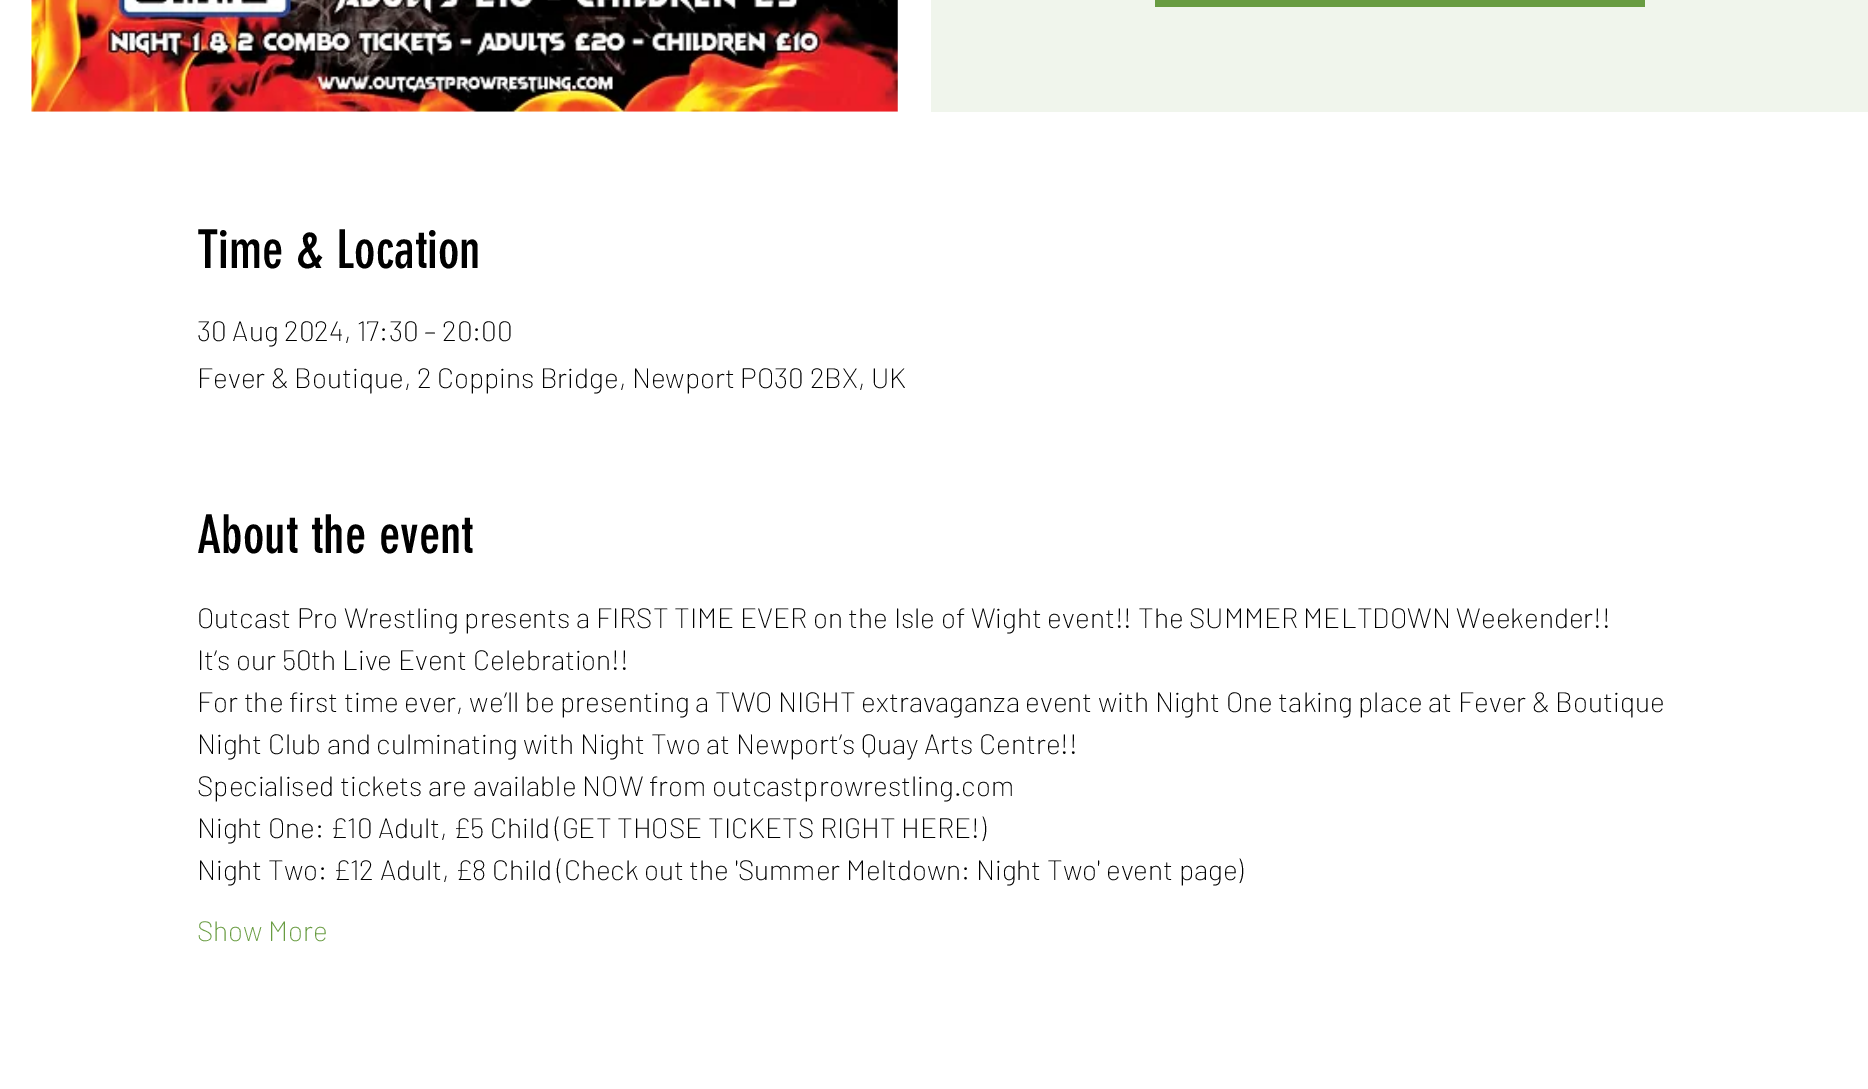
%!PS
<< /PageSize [1868 1089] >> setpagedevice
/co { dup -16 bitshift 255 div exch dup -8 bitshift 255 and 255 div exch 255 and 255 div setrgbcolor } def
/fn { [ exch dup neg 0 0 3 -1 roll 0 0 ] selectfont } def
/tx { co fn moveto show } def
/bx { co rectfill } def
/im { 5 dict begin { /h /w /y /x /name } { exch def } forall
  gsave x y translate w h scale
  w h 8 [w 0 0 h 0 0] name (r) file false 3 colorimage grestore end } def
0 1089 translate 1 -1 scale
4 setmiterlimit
0 0 1868 1089 16#FFFFFF bx
(media/1.raw) 31 0 867 112 im
931 0 937 112 16#F0F5EC bx
1155 0 490 7 16#689C41 bx
(Time & Location) 197 268 /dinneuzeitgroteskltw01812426-Regular 52.5 16#000000 tx
(30 Aug 2024, 17:30 – 20:00) 197 341 /Barlow-ExtraLight 28 16#000000 tx
(Fever & Boutique, 2 Coppins Bridge, Newport PO30 2BX, UK) 197 388 /Barlow-ExtraLight 28 16#000000 tx
(About the event) 197 553 /dinneuzeitgroteskltw01812426-Regular 52.5 16#000000 tx
(Outcast Pro Wrestling presents a FIRST TIME EVER on the Isle of Wight event!! The SUMMER MELTDOWN Weekender!!) 197 628 /Barlow-ExtraLight 28 16#000000 tx
(It’s our 50th Live Event Celebration!!) 197 670 /Barlow-ExtraLight 28 16#000000 tx
(For the first time ever, we’ll be presenting a TWO NIGHT extravaganza event with Night One taking place at Fever & Boutique) 197 712 /Barlow-ExtraLight 28 16#000000 tx
(Night Club and culminating with Night Two at Newport’s Quay Arts Centre!!) 197 754 /Barlow-ExtraLight 28 16#000000 tx
(Specialised tickets are available NOW from outcastprowrestling.com) 197 796 /Barlow-ExtraLight 28 16#000000 tx
(Night One: £10 Adult, £5 Child \(GET THOSE TICKETS RIGHT HERE!\)) 197 838 /Barlow-ExtraLight 28 16#000000 tx
(Night Two: £12 Adult, £8 Child \(Check out the 'Summer Meltdown: Night Two' event page\)) 197 880 /Barlow-ExtraLight 28 16#000000 tx
(Show More) 197 941 /Barlow-ExtraLight 28 16#689C41 tx
showpage
